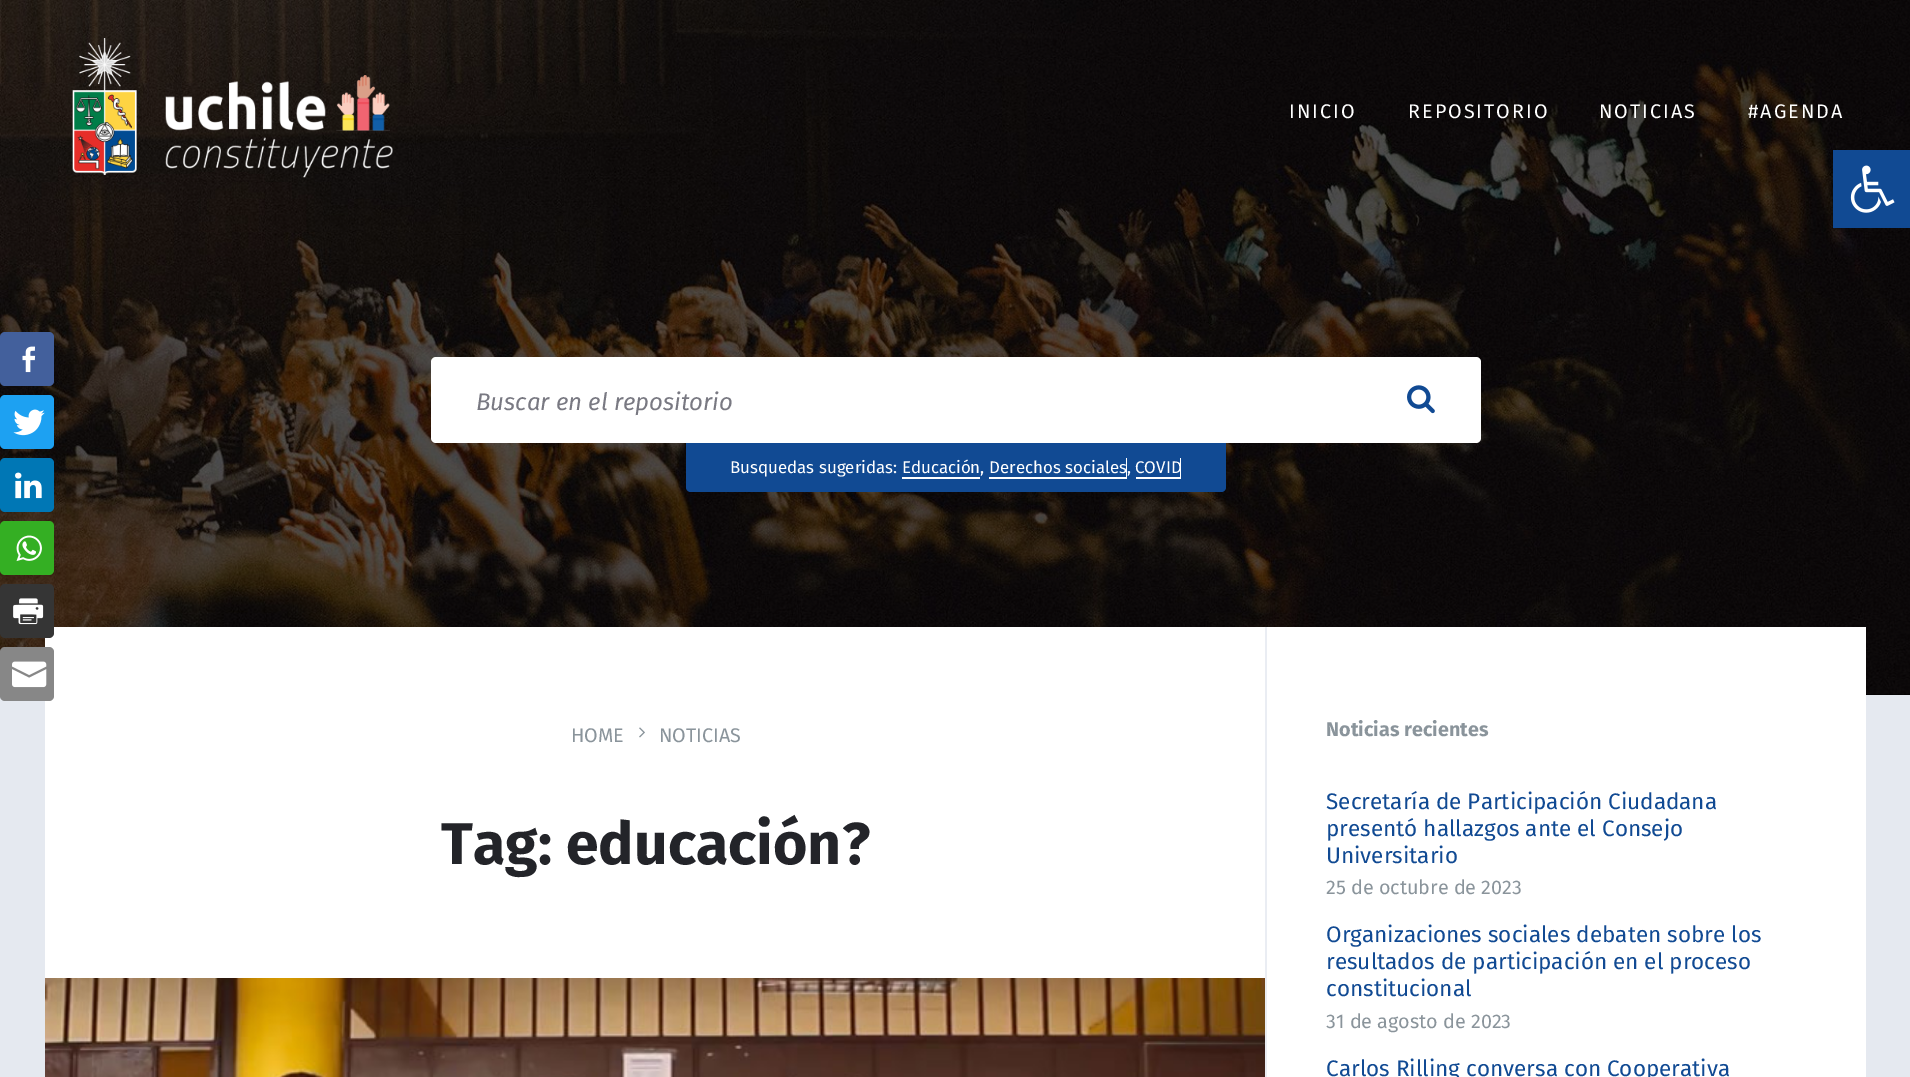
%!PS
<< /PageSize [1910 1077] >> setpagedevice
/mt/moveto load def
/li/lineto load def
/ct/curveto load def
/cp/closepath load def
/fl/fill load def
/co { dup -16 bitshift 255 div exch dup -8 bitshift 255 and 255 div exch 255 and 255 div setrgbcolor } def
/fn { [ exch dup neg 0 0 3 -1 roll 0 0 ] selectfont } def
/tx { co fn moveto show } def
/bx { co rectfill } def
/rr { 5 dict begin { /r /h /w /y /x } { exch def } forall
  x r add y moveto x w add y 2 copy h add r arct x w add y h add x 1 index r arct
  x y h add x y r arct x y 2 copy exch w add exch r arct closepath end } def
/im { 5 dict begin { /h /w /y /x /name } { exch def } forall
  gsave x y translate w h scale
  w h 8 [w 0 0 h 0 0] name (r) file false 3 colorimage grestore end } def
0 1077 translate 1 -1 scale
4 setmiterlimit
0 0 1910 1077 16#E5E9F0 bx
1866 694 44 1 16#000000 bx
(media/1.raw) 0 0 1910 695 im
(media/2.raw) 72 38 321 140 im
16#FFFFFF co
431 357 1050 86 5 rr fl
(media/3.raw) 1407 385 28 29 im
16#114A93 co
686 443 mt 1226 443 li 1226 487 li 1226 490 1224 492 1221 492 ct 691 492 li 688 492 686 490 686 487 ct cp fl
16#FFFFFF co
989 477 mt 989 479 li 1127 479 li 1127 458 li 1126 458 li 1126 477 li cp fl
1136 477 mt 1136 479 li 1181 479 li 1181 458 li 1180 458 li 1180 477 li cp fl
902 477 mt 902 479 li 980 479 li 980 458 li 980 477 li cp fl
45 627 1821 450 16#FFFFFF bx
(media/4.raw) 639 727 6 11 im
(media/5.raw) 45 978 1220 99 im
1265 627 2 450 16#EAEDF3 bx
1833 150 77 78 16#114A93 bx
(media/6.raw) 1850 165 45 48 im
16#43609C co
0 332 54 54 5 rr fl
(media/7.raw) 22 346 14 27 im
16#1DA1F2 co
0 395 54 54 5 rr fl
(media/8.raw) 13 409 32 27 im
16#0077B5 co
0 458 54 54 5 rr fl
(media/9.raw) 15 472 27 27 im
16#34AF23 co
0 521 54 54 5 rr fl
(media/10.raw) 16 535 26 27 im
16#353535 co
0 584 54 54 5 rr fl
(media/11.raw) 13 598 31 27 im
16#878787 co
0 647 54 54 5 rr fl
(media/12.raw) 12 661 35 27 im
/FiraSans-Regular 19.75 fn
16#FFFFFF co
1289 118 mt 2 0 (INICIO) ashow
1408 118 mt 2 0 (REPOSITORIO) ashow
1599 118 mt 2 0 (NOTICIAS) ashow
1748 118 mt 2 0 (#AGENDA) ashow
(Buscar en el repositorio) 476 410 /FiraSans-Italic 24 16#797982 tx
(Busquedas sugeridas: Educación,) 730 473 /FiraSans-Regular 16.9 16#FFFFFF tx
(Derechos sociales,) 989 473 /FiraSans-Regular 16.9 16#FFFFFF tx
(COVID) 1135 473 /FiraSans-Regular 16.9 16#FFFFFF tx
(HOME) 571 742 /FiraSans-Regular 19.75 16#8A949B tx
(NOTICIAS) 659 742 /FiraSans-Regular 19.75 16#8A949B tx
(Tag: educación?) 441 864 /FiraSans-Bold 59 16#232429 tx
(Noticias recientes) 1326 736 /FiraSans-Bold 19.75 16#8A949B tx
(Secretaría de Participación Ciudadana) 1326 809 /FiraSans-Regular 22.5 16#114A93 tx
(presentó hallazgos ante el Consejo) 1326 836 /FiraSans-Regular 22.5 16#114A93 tx
(Universitario) 1326 863 /FiraSans-Regular 22.5 16#114A93 tx
(25 de octubre de 2023) 1326 894 /FiraSans-Regular 19.75 16#8A949B tx
(Organizaciones sociales debaten sobre los) 1326 942 /FiraSans-Regular 22.5 16#114A93 tx
(resultados de participación en el proceso) 1326 969 /FiraSans-Regular 22.5 16#114A93 tx
(constitucional) 1326 996 /FiraSans-Regular 22.5 16#114A93 tx
(31 de agosto de 2023) 1326 1028 /FiraSans-Regular 19.75 16#8A949B tx
(Carlos Rilling conversa con Cooperativa) 1326 1076 /FiraSans-Regular 22.5 16#114A93 tx
showpage
